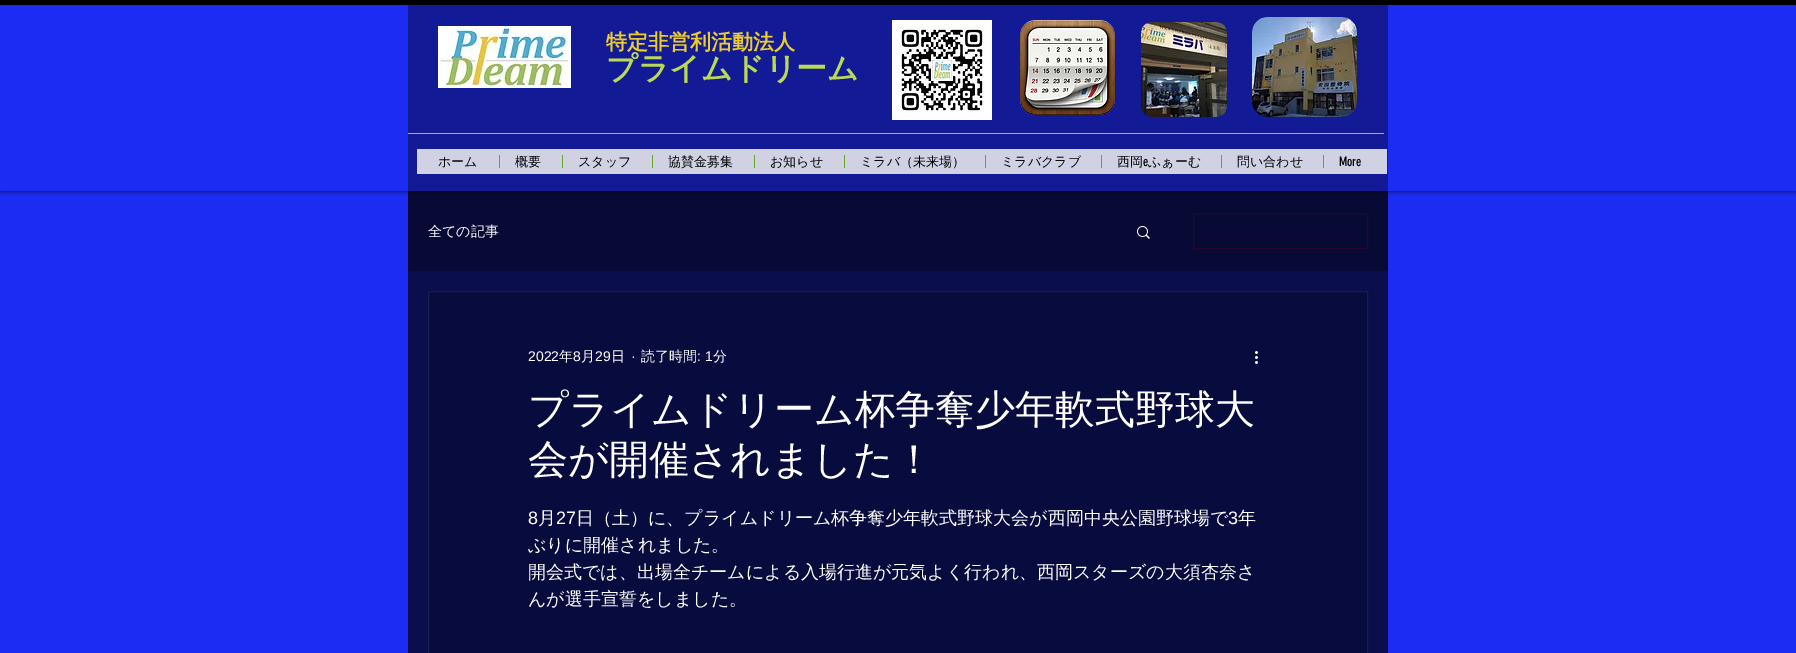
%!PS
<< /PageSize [1796 653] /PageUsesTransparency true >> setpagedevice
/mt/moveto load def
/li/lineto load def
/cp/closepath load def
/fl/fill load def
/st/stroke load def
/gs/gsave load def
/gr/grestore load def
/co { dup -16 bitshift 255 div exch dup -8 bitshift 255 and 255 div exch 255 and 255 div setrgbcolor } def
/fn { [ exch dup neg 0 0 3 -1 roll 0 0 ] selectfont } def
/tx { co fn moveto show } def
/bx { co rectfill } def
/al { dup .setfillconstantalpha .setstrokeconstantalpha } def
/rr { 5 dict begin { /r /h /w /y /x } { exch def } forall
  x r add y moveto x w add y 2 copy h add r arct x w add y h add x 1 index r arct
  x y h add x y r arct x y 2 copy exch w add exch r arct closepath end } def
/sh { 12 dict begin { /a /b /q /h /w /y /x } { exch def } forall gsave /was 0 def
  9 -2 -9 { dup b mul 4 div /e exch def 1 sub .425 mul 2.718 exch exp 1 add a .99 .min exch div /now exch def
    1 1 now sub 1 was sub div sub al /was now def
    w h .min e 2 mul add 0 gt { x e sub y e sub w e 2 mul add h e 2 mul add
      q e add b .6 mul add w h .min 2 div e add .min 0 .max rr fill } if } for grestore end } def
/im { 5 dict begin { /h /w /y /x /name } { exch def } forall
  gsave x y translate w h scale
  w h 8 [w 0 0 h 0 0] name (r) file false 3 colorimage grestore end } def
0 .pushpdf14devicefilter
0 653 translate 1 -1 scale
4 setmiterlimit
0 0 1796 653 16#1D2CF3 bx
408 191 980 80 16#070A34 bx
gs
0 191 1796 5 rectclip
16#000000 co
0 0 1796 191 0 2.5 .7 sh
gr
408 5 980 186 16#121B95 bx
0 0 1796 5 16#000000 bx
(media/1.raw) 438 26 133 62 im
(media/2.raw) 892 20 100 100 im
(media/3.raw) 1020 20 95 95 im
(media/4.raw) 1141 22 86 95 im
(media/5.raw) 1252 17 105 100 im
408 133 976 1 16#A7ABD8 bx
417 149 970 25 16#D0D1E3 bx
499 155 1 13 16#62AA23 bx
562 155 1 13 16#62AA23 bx
652 155 1 13 16#62AA23 bx
754 155 1 13 16#62AA23 bx
844 155 1 13 16#62AA23 bx
985 155 1 13 16#62AA23 bx
1101 155 1 13 16#62AA23 bx
1221 155 1 13 16#62AA23 bx
1323 155 1 13 16#62AA23 bx
408 271 980 382 16#0A0E4D bx
(media/6.raw) 1137 226 13 13 im
16#27082A co
1193.5 213.5 174 35 rectstroke
16#080B3D co
428.5 291.5 mt 1367.5 291.5 li 1367.5 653.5 li 428.5 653.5 li cp gs fl gr
16#1A1D45 co
st
(media/7.raw) 1255 351 3 13 im
(特定非営利活動法人) 606 49 /WenQuanYiZenHei-Bold 21 16#EDCD2B tx
(プライムドリーム) 606 79 /WenQuanYiZenHei-Bold 31 16#BADA55 tx
(ホーム) 438 166 /WenQuanYiZenHei-Medium 13 16#000000 tx
(概要) 515 166 /WenQuanYiZenHei-Medium 13 16#000000 tx
(スタッフ) 578 166 /WenQuanYiZenHei-Medium 13 16#000000 tx
(協賛金募集) 668 166 /WenQuanYiZenHei-Medium 13 16#000000 tx
(お知らせ) 770 166 /WenQuanYiZenHei-Medium 13 16#000000 tx
(ミラバ（未来場）) 860 166 /WenQuanYiZenHei-Medium 13 16#000000 tx
(ミラバクラブ) 1001 166 /WenQuanYiZenHei-Medium 13 16#000000 tx
(西岡) 1117 166 /WenQuanYiZenHei-Medium 13 16#000000 tx
(e) 1143 166 /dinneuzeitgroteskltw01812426-Regular 13 16#000000 tx
(ふぁーむ) 1148 166 /WenQuanYiZenHei-Medium 13 16#000000 tx
(問い合わせ) 1237 166 /WenQuanYiZenHei-Medium 13 16#000000 tx
(More) 1339 166 /dinneuzeitgroteskltw01812426-Regular 13 16#000000 tx
(全ての記事) 428 236 /WenQuanYiZenHei-Medium 14 16#FFFFFF tx
(2022) 528 361 /LiberationSans-Regular 14 16#FFFFFF tx
(年) 559 361 /WenQuanYiZenHei-Medium 14 16#FFFFFF tx
(8) 573 361 /LiberationSans-Regular 14 16#FFFFFF tx
(月) 581 361 /WenQuanYiZenHei-Medium 14 16#FFFFFF tx
(29) 595 361 /LiberationSans-Regular 14 16#FFFFFF tx
(日) 611 361 /WenQuanYiZenHei-Medium 14 16#FFFFFF tx
(·) 631 361 /LiberationSans-Regular 14 16#FFFFFF tx
(読了時間) 641 361 /WenQuanYiZenHei-Medium 14 16#FFFFFF tx
(: 1) 697 361 /LiberationSans-Regular 14 16#FFFFFF tx
(分) 713 361 /WenQuanYiZenHei-Medium 14 16#FFFFFF tx
(プライムドリーム杯争奪少年軟式野球大) 528 423 /WenQuanYiZenHei-Medium 40 16#FFFFFF tx
(会が開催されました！) 528 473 /WenQuanYiZenHei-Medium 40 16#FFFFFF tx
(8) 528 524 /LiberationSans-Regular 18 16#FFFFFF tx
(月) 538 524 /WenQuanYiZenHei-Medium 18 16#FFFFFF tx
(27) 556 524 /LiberationSans-Regular 18 16#FFFFFF tx
(日（土）に、プライムドリーム杯争奪少年軟式野球大会が西岡中央公園野球場で) 576 524 /WenQuanYiZenHei-Medium 18 16#FFFFFF tx
(3) 1228 524 /LiberationSans-Regular 18 16#FFFFFF tx
(年) 1238 524 /WenQuanYiZenHei-Medium 18 16#FFFFFF tx
(ぶりに開催されました。) 528 551 /WenQuanYiZenHei-Medium 18 16#FFFFFF tx
(開会式では、出場全チームによる入場行進が元気よく行われ、西岡スターズの大須杏奈さ) 528 578 /WenQuanYiZenHei-Medium 18 16#FFFFFF tx
(んが選手宣誓をしました。) 528 605 /WenQuanYiZenHei-Medium 18 16#FFFFFF tx
.poppdf14devicefilter showpage
